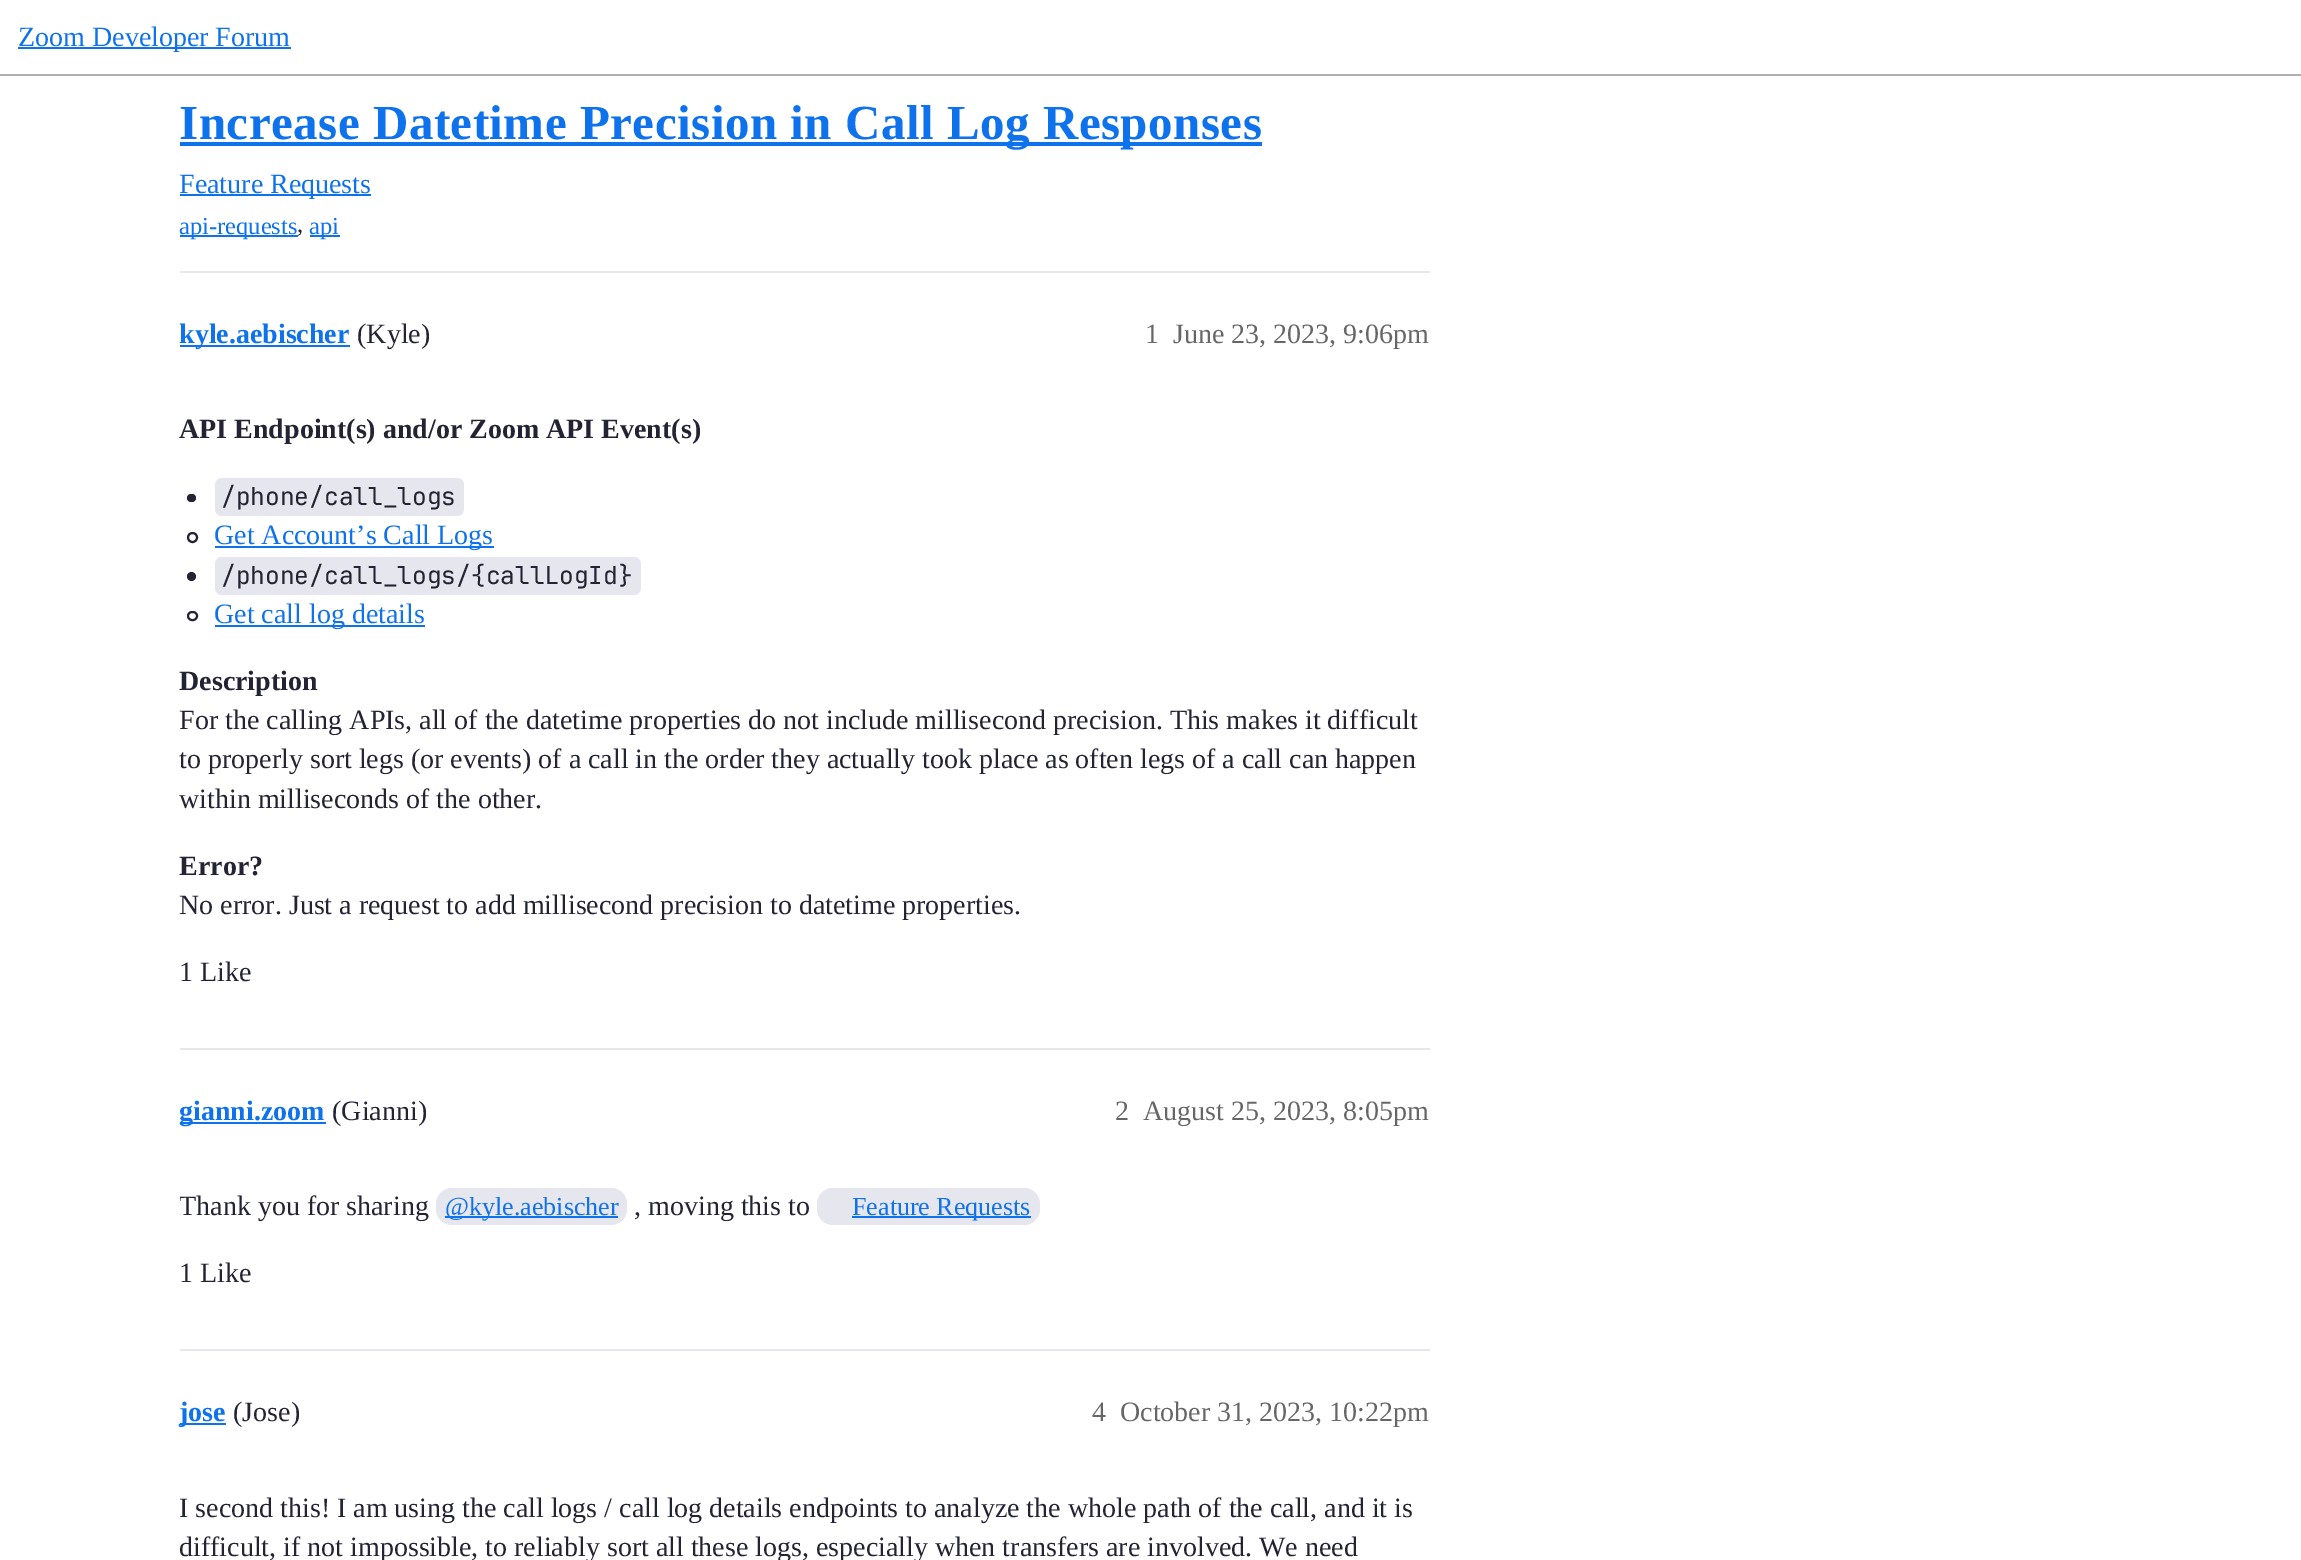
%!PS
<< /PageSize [2301 1560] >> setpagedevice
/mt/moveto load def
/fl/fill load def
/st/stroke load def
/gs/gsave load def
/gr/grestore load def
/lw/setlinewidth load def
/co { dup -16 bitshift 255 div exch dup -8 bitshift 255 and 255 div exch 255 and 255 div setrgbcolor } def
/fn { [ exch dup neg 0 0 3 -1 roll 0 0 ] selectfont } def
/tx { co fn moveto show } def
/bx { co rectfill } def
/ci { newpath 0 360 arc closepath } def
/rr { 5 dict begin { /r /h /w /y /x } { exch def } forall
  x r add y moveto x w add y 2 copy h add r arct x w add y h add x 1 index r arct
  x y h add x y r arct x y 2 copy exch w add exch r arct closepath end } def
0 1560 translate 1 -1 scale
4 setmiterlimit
0 0 2301 1560 16#FFFFFF bx
0 74 2301 2 16#AFAFAF bx
18 47 273 2 16#0E72ED bx
180 142 1082 4 16#0E72ED bx
180 194 191 2 16#0E72ED bx
310 235 30 2 16#0E72ED bx
180 271 1250 2 16#E6E6EE bx
180 345 170 2 16#0E72ED bx
16#232333 co
187 494 9 8 4 rr fl
16#E6E6EE co
215 478 249 38 7 rr fl
16#232333 co
2 lw
192.5 537.5 4.5 ci st
215 546 279 2 16#0E72ED bx
16#232333 co
191.5 576.5 4.5 ci fl
16#E6E6EE co
215 557 426 38 7 rr fl
16#232333 co
188 612 9 8 4 rr st
215 625 210 2 16#0E72ED bx
180 1048 1250 2 16#E6E6EE bx
180 1122 146 2 16#0E72ED bx
16#E6E6EE co
436 1188 191 37 16 rr fl
445 1216 173 2 16#0E72ED bx
16#E6E6EE co
817 1188 223 37 16 rr fl
852 1216 179 2 16#0E72ED bx
180 1349 1250 2 16#E6E6EE bx
180 1423 46 2 16#0E72ED bx
(Zoom Developer Forum) 18 46 /LiberationSerif-Regular 28 16#0E72ED tx
/LiberationSerif-Bold 49 fn
179 139 mt .5 0 (Increase Datetime Precision in Call Log Responses) ashow
(Feature Requests) 179 193 /LiberationSerif-Regular 28 16#0E72ED tx
(,) 297 232 /LiberationSerif-Regular 24.5 16#232333 tx
180 235 118 2 16#0E72ED bx
(api-requests) 179 234 /LiberationSerif-Regular 24.5 16#0E72ED tx
(api) 309 234 /LiberationSerif-Regular 24.5 16#0E72ED tx
(kyle.aebischer) 179 343 /LiberationSerif-Bold 28 16#0E72ED tx
(\(Kyle\)) 357 343 /LiberationSerif-Regular 28 16#232333 tx
(1) 1145 343 /LiberationSerif-Regular 28 16#666666 tx
(June 23, 2023, 9:06pm) 1173 343 /LiberationSerif-Regular 28 16#666666 tx
(API Endpoint\(s\) and/or Zoom API Event\(s\)) 179 438 /LiberationSerif-Bold 28 16#232333 tx
(/phone/call_logs) 221 505 /JetBrainsMono-Regular 24.5 16#232333 tx
(Get Account’s Call Logs) 214 544 /LiberationSerif-Regular 28 16#0E72ED tx
(/phone/call_logs/{callLogId}) 221 584 /JetBrainsMono-Regular 24.5 16#232333 tx
(Get call log details) 214 623 /LiberationSerif-Regular 28 16#0E72ED tx
(Description) 179 690 /LiberationSerif-Bold 28 16#232333 tx
(For the calling APIs, all of the datetime properties do not include millisecond precision. This makes it difficult) 179 729 /LiberationSerif-Regular 28 16#232333 tx
(to properly sort legs \(or events\) of a call in the order they actually took place as often legs of a call can happen) 179 768 /LiberationSerif-Regular 28 16#232333 tx
(within milliseconds of the other.) 179 808 /LiberationSerif-Regular 28 16#232333 tx
(Error?) 179 875 /LiberationSerif-Bold 28 16#232333 tx
(No error. Just a request to add millisecond precision to datetime properties.) 179 914 /LiberationSerif-Regular 28 16#232333 tx
(1 Like) 179 981 /LiberationSerif-Regular 28 16#232333 tx
(gianni.zoom) 179 1120 /LiberationSerif-Bold 28 16#0E72ED tx
(\(Gianni\)) 332 1120 /LiberationSerif-Regular 28 16#232333 tx
(2) 1115 1120 /LiberationSerif-Regular 28 16#666666 tx
(August 25, 2023, 8:05pm) 1143 1120 /LiberationSerif-Regular 28 16#666666 tx
gs
180 1159 1250 96 rectclip
(Thank you for sharing) 179 1215 /LiberationSerif-Regular 28 16#232333 tx
gr
(@kyle.aebischer) 445 1215 /LiberationSerif-Regular 26 16#0E72ED tx
(, moving this to) 634 1215 /LiberationSerif-Regular 28 16#232333 tx
(Feature Requests) 852 1215 /LiberationSerif-Regular 26 16#0E72ED tx
(1 Like) 179 1282 /LiberationSerif-Regular 28 16#232333 tx
(jose) 179 1421 /LiberationSerif-Bold 28 16#0E72ED tx
(\(Jose\)) 233 1421 /LiberationSerif-Regular 28 16#232333 tx
(4) 1092 1421 /LiberationSerif-Regular 28 16#666666 tx
(October 31, 2023, 10:22pm) 1120 1421 /LiberationSerif-Regular 28 16#666666 tx
(I second this! I am using the call logs / call log details endpoints to analyze the whole path of the call, and it is) 179 1517 /LiberationSerif-Regular 28 16#232333 tx
(difficult, if not impossible, to reliably sort all these logs, especially when transfers are involved. We need) 179 1556 /LiberationSerif-Regular 28 16#232333 tx
showpage
